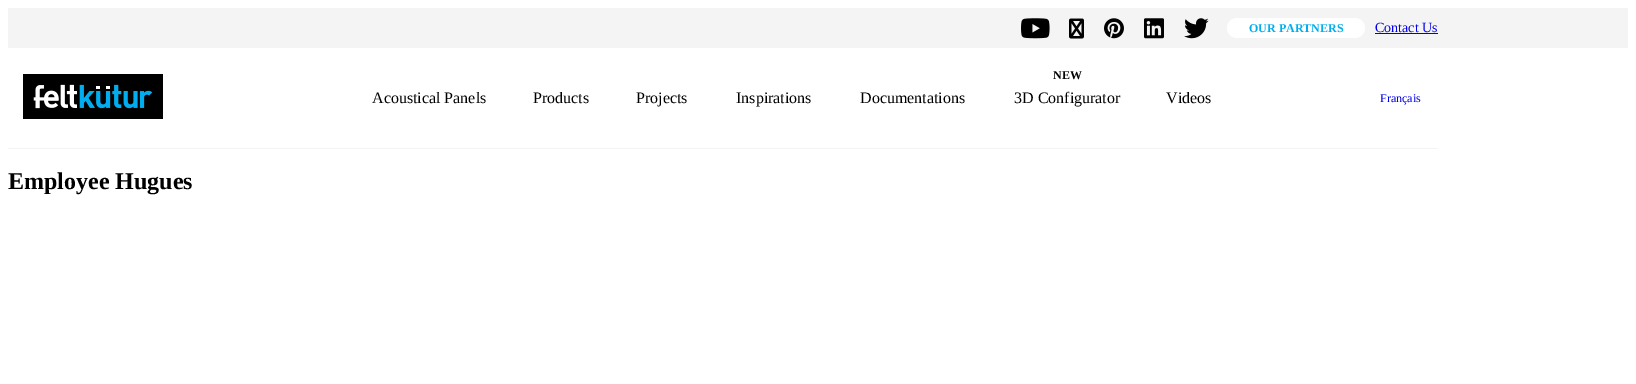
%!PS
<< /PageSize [1636 384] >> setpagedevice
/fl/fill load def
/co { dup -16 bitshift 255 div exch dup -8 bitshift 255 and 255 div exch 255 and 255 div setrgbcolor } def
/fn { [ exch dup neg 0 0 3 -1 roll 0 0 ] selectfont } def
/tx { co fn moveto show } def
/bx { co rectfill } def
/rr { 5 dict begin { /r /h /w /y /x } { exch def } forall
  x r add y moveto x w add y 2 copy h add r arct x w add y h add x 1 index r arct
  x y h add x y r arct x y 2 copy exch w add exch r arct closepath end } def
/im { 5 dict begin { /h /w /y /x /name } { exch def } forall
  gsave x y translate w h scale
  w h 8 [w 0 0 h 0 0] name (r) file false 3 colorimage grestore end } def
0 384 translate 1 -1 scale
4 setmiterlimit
0 0 1636 384 16#FFFFFF bx
8 8 1620 40 16#F4F4F4 bx
(media/1.raw) 1021 18 29 21 im
(media/2.raw) 1069 18 15 21 im
(media/3.raw) 1104 18 20 21 im
(media/4.raw) 1144 18 20 21 im
(media/5.raw) 1184 18 25 21 im
16#FFFFFF co
1227 18 138 20 10 rr fl
1375 33 63 1 16#0000EE bx
(media/6.raw) 23 74 140 45 im
8 148 1430 1 16#F4F4F4 bx
(OUR PARTNERS) 1249 32 /LiberationSerif-Bold 12 16#00AEEF tx
(Contact Us) 1375 32 /LiberationSerif-Regular 14 16#0000EE tx
(Acoustical Panels) 372 103 /LiberationSerif-Regular 16 16#000000 tx
(Products) 533 103 /LiberationSerif-Regular 16 16#000000 tx
(Projects) 636 103 /LiberationSerif-Regular 16 16#000000 tx
(Inspirations) 736 103 /LiberationSerif-Regular 16 16#000000 tx
(Documentations) 860 103 /LiberationSerif-Regular 16 16#000000 tx
(NEW) 1053 79 /LiberationSerif-Bold 12 16#000000 tx
(3D Configurator) 1014 103 /LiberationSerif-Regular 16 16#000000 tx
(Videos) 1166 103 /LiberationSerif-Regular 16 16#000000 tx
(Français) 1380 102 /LiberationSerif-Regular 12 16#0000EE tx
(Employee Hugues) 8 189 /LiberationSerif-Bold 24 16#000000 tx
showpage
